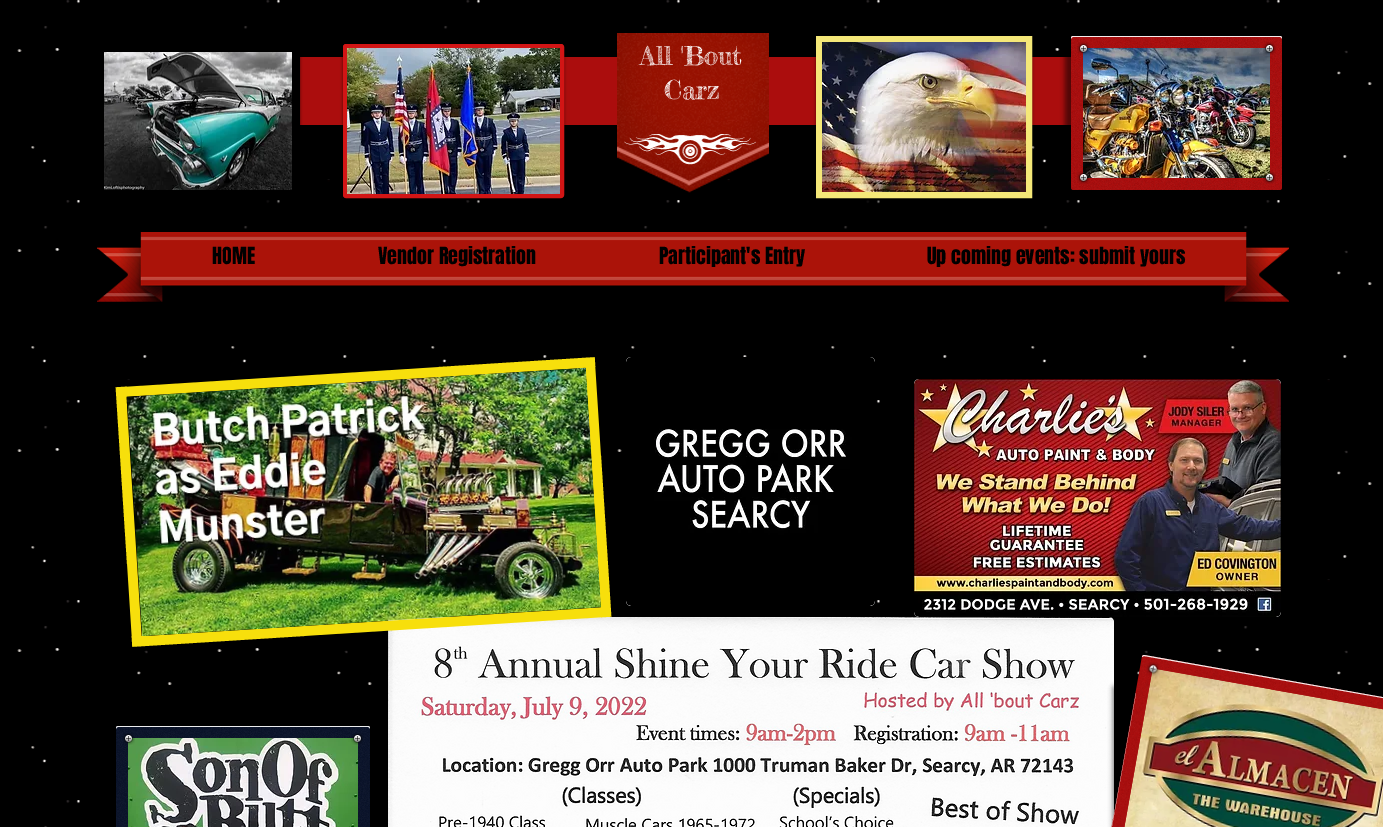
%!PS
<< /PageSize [1383 827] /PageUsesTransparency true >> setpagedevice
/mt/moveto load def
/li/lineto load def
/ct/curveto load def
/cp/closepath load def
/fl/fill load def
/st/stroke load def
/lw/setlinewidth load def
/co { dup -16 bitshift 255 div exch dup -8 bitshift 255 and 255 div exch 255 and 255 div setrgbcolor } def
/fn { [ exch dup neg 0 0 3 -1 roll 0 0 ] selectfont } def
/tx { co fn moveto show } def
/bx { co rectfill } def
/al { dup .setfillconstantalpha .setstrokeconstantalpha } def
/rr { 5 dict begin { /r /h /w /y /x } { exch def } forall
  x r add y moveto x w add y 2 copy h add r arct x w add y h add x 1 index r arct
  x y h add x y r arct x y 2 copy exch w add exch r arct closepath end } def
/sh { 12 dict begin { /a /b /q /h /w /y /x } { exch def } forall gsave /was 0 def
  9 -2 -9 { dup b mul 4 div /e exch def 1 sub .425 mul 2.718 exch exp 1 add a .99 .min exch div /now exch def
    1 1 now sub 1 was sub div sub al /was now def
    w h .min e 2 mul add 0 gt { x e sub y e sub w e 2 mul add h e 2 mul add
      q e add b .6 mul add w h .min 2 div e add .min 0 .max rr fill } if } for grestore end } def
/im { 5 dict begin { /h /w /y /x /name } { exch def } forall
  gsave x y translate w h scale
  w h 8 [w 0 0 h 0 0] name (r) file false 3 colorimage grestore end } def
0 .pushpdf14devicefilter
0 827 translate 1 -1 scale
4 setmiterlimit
0 0 1383 827 16#000000 bx
(media/1.raw) 17 0 1355 827 im
300 57 771 68 16#AB0D0D bx
16#000000 co
96 44 204 154 3 1.5 .5 sh
96 44 204 154 3 rr fl
(media/2.raw) 104 52 188 138 im
(media/3.raw) 266 200 14 3 im
343 44 221 154 3 1.5 .5 sh
16#D21515 co
4 lw
345 46 217 150 1 rr st
(media/4.raw) 347 48 213 146 im
(media/5.raw) 467 200 13 3 im
(media/6.raw) 617 33 152 160 im
16#000000 co
816 36 216 162 3 1.5 .5 sh
16#F5E878 co
6 lw
819 39 210 156 rectstroke
(media/7.raw) 822 42 204 150 im
(media/8.raw) 866 200 14 3 im
16#000000 co
1065 45 211 154 2 2.5 .53 sh
16#AB0D0D co
1071 36 211 154 2 rr fl
(media/9.raw) 1071 36 211 154 im
0.92 al
16#FFFFFF co
1073 37 mt 1072 37 1071 38 1071 39 ct 1071 38 1071 36 1073 36 ct 1280 36 li 1282 36 1282 38 1282 39 ct 1282 38 1281 37 1280 37 ct cp fl
1 al
(media/12.raw) 1083 48 187 130 im
(media/10.raw) 1077 42 13 13 im
(media/11.raw) 1263 42 13 13 im
(media/13.raw) 1077 171 13 13 im
(media/14.raw) 1263 171 13 13 im
(media/15.raw) 624 134 132 31 im
(media/16.raw) 97 232 1192 70 im
388 617 726 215 5 rr fl
(media/24.raw) 388 617 726 210 im
16#F7DF0C co
10 lw
121 392 mt 590 362.5 li 606 612 li 137 641.5 li cp st
(media/17.raw) 127 367 474 269 im
16#FFFFFF co
626 357 249 249 5 rr fl
(media/18.raw) 626 357 249 249 im
914 379 367 238 5 rr fl
(media/19.raw) 914 379 367 238 im
0.5 al
16#142654 co
116 726 254 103 2 rr fl
1 al
(media/20.raw) 116 726 254 101 im
0.92 al
16#FFFFFF co
118 727 mt 117 727 116 728 116 729 ct 116 728 116 726 118 726 ct 368 726 li 370 726 370 728 370 729 ct 370 728 369 727 368 727 ct cp fl
1 al
(media/23.raw) 128 738 230 89 im
(media/21.raw) 123 733 12 12 im
(media/22.raw) 351 733 12 12 im
16#000000 co
1113 686 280 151 2 2.5 .53 sh
16#AB0D0D co
1144 655 mt 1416 703 li 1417 703 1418 704 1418 705 ct 1375 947 li 1375 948 1374 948 1373 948 ct 1101 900 li 1100 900 1099 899 1099 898 ct 1142 656 li 1142 655 1143 655 1144 655 ct cp fl
(media/25.raw) 1113 655 270 172 im
(media/27.raw) 1124 668 259 159 im
0.92 al
16#FFFFFF co
1144 656 mt 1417 704 li 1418 705 li 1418 704 li 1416 703 li 1144 655 li 1143 655 1142 656 1142 657 ct cp 1099 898 mt 1136 693 li cp eofill
1 al
(media/26.raw) 1146 662 14 14 im
(All 'Bout) 640 65 /FrederickatheGreat-Regular 26 16#FFFFFF tx
(Carz) 664 99 /FrederickatheGreat-Regular 26 16#FFFFFF tx
(HOME) 212 264 /Anton-Regular 20 16#000000 tx
(Vendor Registration) 378 264 /Anton-Regular 20 16#000000 tx
(Participant's Entry) 659 264 /Anton-Regular 20 16#000000 tx
(Up coming events: submit yours) 927 264 /Anton-Regular 20 16#000000 tx
.poppdf14devicefilter showpage
